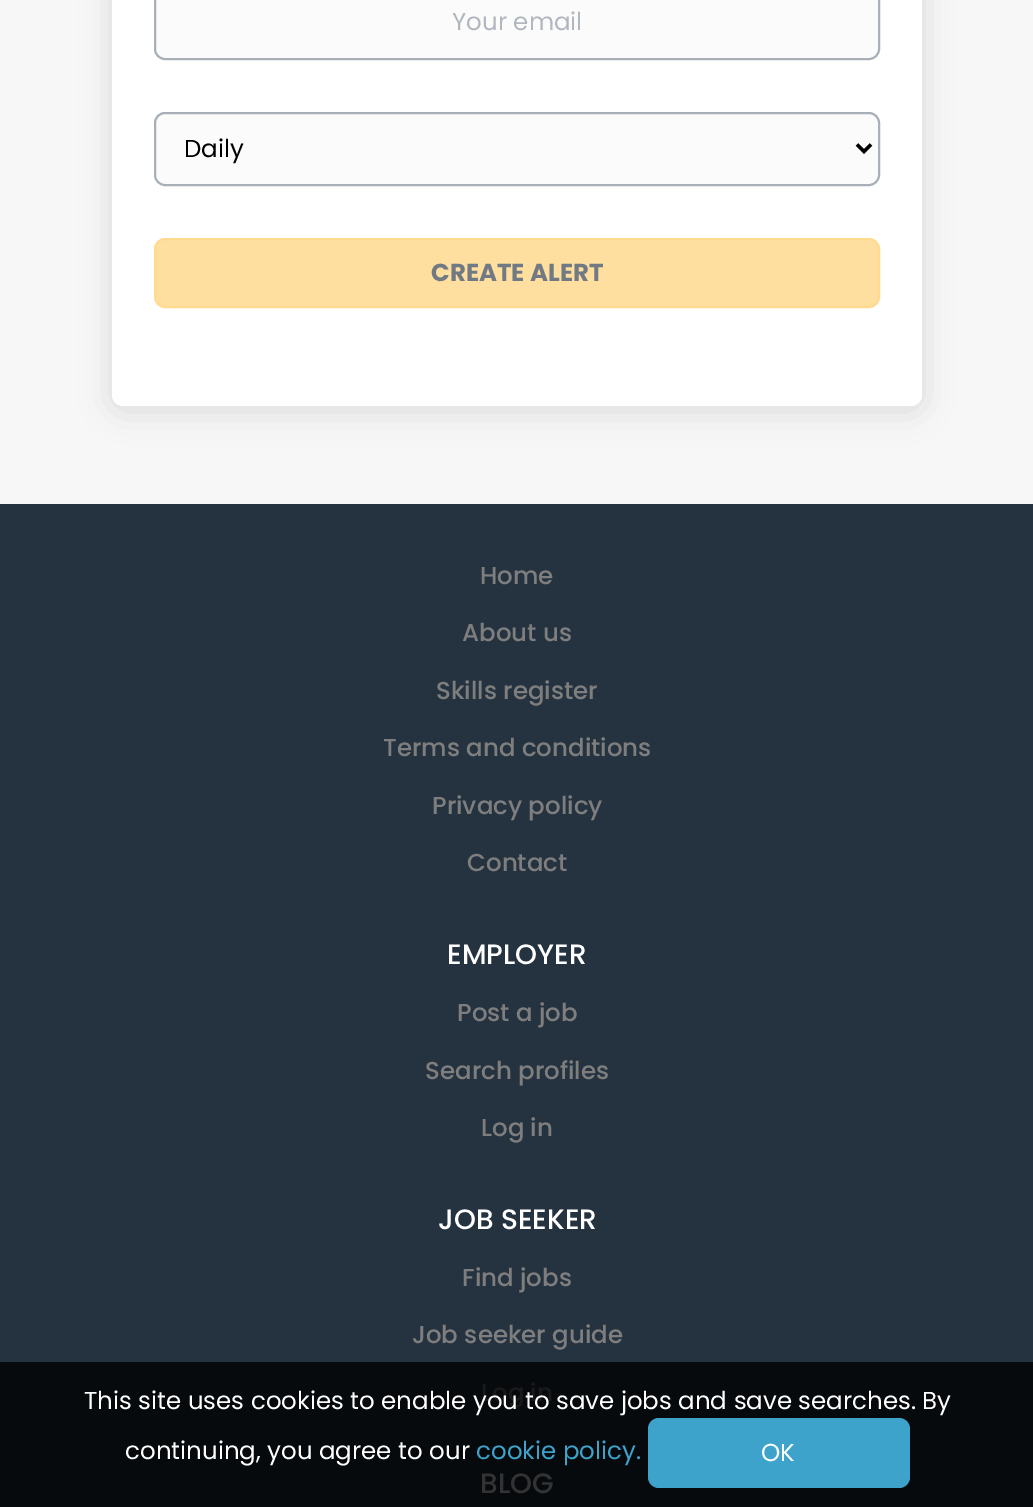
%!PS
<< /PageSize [1033 1507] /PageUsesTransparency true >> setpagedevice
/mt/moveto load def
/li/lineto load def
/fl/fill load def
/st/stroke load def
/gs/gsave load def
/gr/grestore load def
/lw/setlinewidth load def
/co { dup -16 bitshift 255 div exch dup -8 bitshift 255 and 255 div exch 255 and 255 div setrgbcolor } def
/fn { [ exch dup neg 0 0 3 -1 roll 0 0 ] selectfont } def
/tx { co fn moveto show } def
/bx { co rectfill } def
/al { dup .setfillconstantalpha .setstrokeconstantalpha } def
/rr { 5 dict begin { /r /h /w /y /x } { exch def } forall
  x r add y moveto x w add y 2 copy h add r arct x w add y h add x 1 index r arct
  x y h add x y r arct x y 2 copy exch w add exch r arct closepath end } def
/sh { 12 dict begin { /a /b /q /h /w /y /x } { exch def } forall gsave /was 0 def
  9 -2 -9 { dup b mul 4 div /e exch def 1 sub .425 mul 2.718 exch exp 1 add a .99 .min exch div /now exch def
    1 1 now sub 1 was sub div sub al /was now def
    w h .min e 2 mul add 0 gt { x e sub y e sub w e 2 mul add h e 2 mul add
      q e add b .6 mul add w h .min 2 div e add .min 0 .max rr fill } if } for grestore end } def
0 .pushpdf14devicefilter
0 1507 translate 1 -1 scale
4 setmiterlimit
0 0 1033 1507 16#F7F7F7 bx
16#000000 co
112 -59 810 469 11 16 .12 sh
16#FFFFFF co
112 -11 810 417 11 rr fl
16#FBFBFB co
155 -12 724 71 10 rr gs fl gr
16#A8AFB7 co
2 lw
st
16#FBFBFB co
155 113 724 72 10 rr gs fl gr
16#A8AFB7 co
st
16#000000 co
3.5 lw
857 144.5 mt 864 151.5 li 871 144.5 li st
16#FFDF9F co
155 239 724 68 10 rr gs fl gr
16#FFDA8F co
2 lw
st
0 504 1033 858 16#25323F bx
0 1362 1033 145 16#070A0D bx
16#3DA3CB co
648 1418 262 70 11 rr fl
(Your email) 452 30 /Poppins-Regular 24.5 16#B1B7BF tx
(Daily) 184 157 /Poppins-Regular 24.5 16#000000 tx
(CREATE ALERT) 431 281 /Poppins-Bold 24.5 16#717A82 tx
(Home) 480 584 /Poppins-Medium 24.5 16#7E7E7E tx
(About us) 462 641 /Poppins-Medium 24.5 16#7E7E7E tx
(Skills register) 436 699 /Poppins-Medium 24.5 16#7E7E7E tx
(Terms and conditions) 383 756 /Poppins-Medium 24.5 16#7E7E7E tx
(Privacy policy) 432 814 /Poppins-Medium 24.5 16#7E7E7E tx
(Contact) 467 871 /Poppins-Medium 24.5 16#7E7E7E tx
(EMPLOYER) 447 964 /Poppins-Medium 28 16#FFFFFF tx
(Post a job) 457 1021 /Poppins-Medium 24.5 16#7E7E7E tx
(Search profiles) 425 1079 /Poppins-Medium 24.5 16#7E7E7E tx
(Log in) 481 1136 /Poppins-Medium 24.5 16#7E7E7E tx
(JOB SEEKER) 438 1229 /Poppins-Medium 28 16#FFFFFF tx
(Find jobs) 462 1286 /Poppins-Medium 24.5 16#7E7E7E tx
(Job seeker guide) 412 1343 /Poppins-Medium 24.5 16#7E7E7E tx
(Log in) 481 1401 /Poppins-Medium 24.5 16#191919 tx
(BLOG) 480 1493 /Poppins-Medium 28 16#333333 tx
(This site uses cookies to enable you to save jobs and save searches. By) 84 1409 /Poppins-Regular 24.5 16#FFFFFF tx
(continuing, you agree to our) 125 1459 /Poppins-Regular 24.5 16#FFFFFF tx
(cookie policy.) 476 1459 /Poppins-Regular 24.5 16#3DA3CB tx
(OK) 761 1461 /Poppins-Regular 24.5 16#FFFFFF tx
.poppdf14devicefilter showpage
